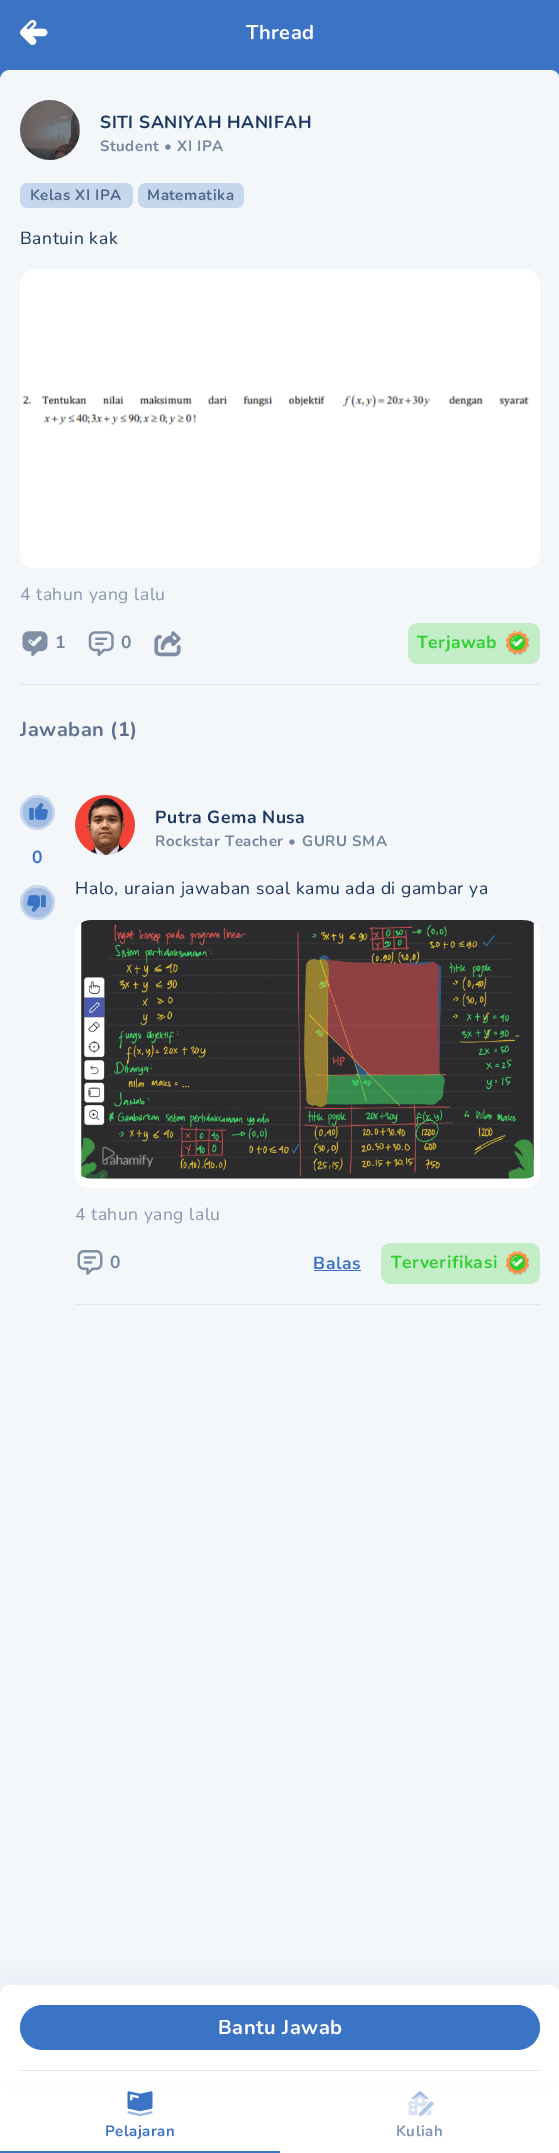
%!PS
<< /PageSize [559 2153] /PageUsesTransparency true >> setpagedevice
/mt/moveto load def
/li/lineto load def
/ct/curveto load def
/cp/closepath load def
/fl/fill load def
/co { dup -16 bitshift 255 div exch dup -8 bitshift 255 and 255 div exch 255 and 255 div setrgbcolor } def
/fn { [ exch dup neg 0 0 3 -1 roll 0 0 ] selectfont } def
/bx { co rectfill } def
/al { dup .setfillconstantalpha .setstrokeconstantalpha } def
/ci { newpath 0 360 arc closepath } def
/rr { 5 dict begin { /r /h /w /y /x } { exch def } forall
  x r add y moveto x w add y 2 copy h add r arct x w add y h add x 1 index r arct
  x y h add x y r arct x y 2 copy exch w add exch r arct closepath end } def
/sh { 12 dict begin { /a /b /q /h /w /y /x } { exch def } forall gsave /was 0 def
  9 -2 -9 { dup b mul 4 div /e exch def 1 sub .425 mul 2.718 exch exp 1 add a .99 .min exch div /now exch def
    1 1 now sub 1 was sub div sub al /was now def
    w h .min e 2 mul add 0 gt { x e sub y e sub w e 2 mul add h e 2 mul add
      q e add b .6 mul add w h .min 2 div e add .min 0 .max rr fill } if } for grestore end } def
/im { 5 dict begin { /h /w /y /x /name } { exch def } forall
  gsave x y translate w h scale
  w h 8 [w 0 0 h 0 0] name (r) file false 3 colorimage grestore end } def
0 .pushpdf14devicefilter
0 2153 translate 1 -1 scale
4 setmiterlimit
0 0 559 2153 16#F4F7FA bx
0 0 559 80 16#3B73C5 bx
(media/1.raw) 20 20 28 25 im
16#F4F7FA co
10 70 mt 550 70 li 555.5 70 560 74.5 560 80 ct 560 1515 li 0 1515 li 0 80 li 0 74.5 4.5 70 10 70 ct cp fl
16#BDCFEA co
50 130 30 ci fl
(media/2.raw) 20 100 60 60 im
16#C6D6ED co
20 183 113 25 8 rr fl
138 183 106 25 8 rr fl
16#FFFFFF co
20 270 520 298 15 rr fl
(media/3.raw) 22 394 508 31 im
(media/4.raw) 22 631 26 26 im
(media/5.raw) 88 631 26 26 im
(media/6.raw) 154 631 27 26 im
16#C3EDC7 co
408 623 132 41 10 rr fl
(media/7.raw) 506 631 23 25 im
20 684 520 1 16#E5E7EB bx
16#C6D6ED co
37.5 812.5 17.5 ci fl
(media/8.raw) 23 798 30 30 im
37.5 902.5 17.5 ci fl
(media/9.raw) 23 888 30 30 im
16#BDCFEA co
105 825 30 ci fl
(media/10.raw) 75 795 60 60 im
16#FFFFFF co
75 920 465 268 15 rr fl
(media/11.raw) 81 920 453 259 im
(media/12.raw) 77 1250 26 25 im
314 1270 47 1 16#3B73C5 bx
16#C3EDC7 co
381 1243 159 41 10 rr fl
(media/7.raw) 506 1251 23 25 im
75 1304 465 1 16#E5E7EB bx
16#3B73C5 co
0 2070 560 78 10 12.5 .15 sh
16#FFFFFF co
10 2076 mt 550 2076 li 555.5 2076 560 2080.5 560 2086 ct 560 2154 li 0 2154 li 0 2086 li 0 2080.5 4.5 2076 10 2076 ct cp fl
(media/13.raw) 127 2091 26 26 im
(media/14.raw) 408 2091 26 26 im
16#205DB7 co
0 1973 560 96 10 12.5 .05 sh
16#FFFFFF co
10 1985 mt 550 1985 li 555.5 1985 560 1989.5 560 1995 ct 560 2081 li 0 2081 li 0 1995 li 0 1989.5 4.5 1985 10 1985 ct cp fl
16#3B73C5 co
20 2005 520 45 22.5 rr fl
20 2070 520 1 16#E5E7EB bx
0 2151 280 2 16#3B73C5 bx
/Nunito-Bold 20 fn
16#FFFFFF co
246 39 mt .5 0 (Thread) ashow
/Nunito-Bold 17.5 fn
16#1D3962 co
100 128 mt .5 0 (SITI SANIYAH HANIFAH) ashow
/Nunito-Bold 15 fn
16#73859F co
100 151 mt .5 0 (Student •) ashow
177 151 mt .5 0 (XI IPA) ashow
16#50688C co
30 200 mt .5 0 (Kelas XI IPA) ashow
147 200 mt .5 0 (Matematika) ashow
/Nunito-Regular 17.5 fn
16#1D3962 co
20 244 mt .5 0 (Bantuin kak) ashow
16#8998AE co
20 600 mt .5 0 (4 tahun yang lalu) ashow
/Nunito-Bold 17.5 fn
16#73859F co
55 648 mt .5 0 (1) ashow
121 648 mt .5 0 (0) ashow
16#2ECF2F co
417 648 mt .5 0 (Terjawab) ashow
/Nunito-Bold 20 fn
16#5E7290 co
20 736 mt .5 0 (Jawaban \(1\)) ashow
/Nunito-Bold 17.5 fn
16#3B73C5 co
32 863 mt .5 0 (0) ashow
16#1D3962 co
155 823 mt .5 0 (Putra Gema Nusa) ashow
/Nunito-Bold 15 fn
16#73859F co
155 846 mt .5 0 (Rockstar Teacher •) ashow
302 846 mt .5 0 (GURU SMA) ashow
/Nunito-Regular 17.5 fn
16#1D3962 co
75 894 mt .5 0 (Halo, uraian jawaban soal kamu ada di gambar ya) ashow
16#8998AE co
75 1220 mt .5 0 (4 tahun yang lalu) ashow
/Nunito-Bold 17.5 fn
16#73859F co
110 1268 mt .5 0 (0) ashow
16#3B73C5 co
313 1269 mt .5 0 (Balas) ashow
16#2ECF2F co
391 1268 mt .5 0 (Terverifikasi) ashow
/Nunito-Bold 20 fn
16#FFFFFF co
218 2034 mt .5 0 (Bantu Jawab) ashow
/Nunito-Bold 15 fn
16#3B73C5 co
105 2136 mt .5 0 (Pelajaran) ashow
16#7E94B3 co
396 2136 mt .5 0 (Kuliah) ashow
.poppdf14devicefilter showpage
